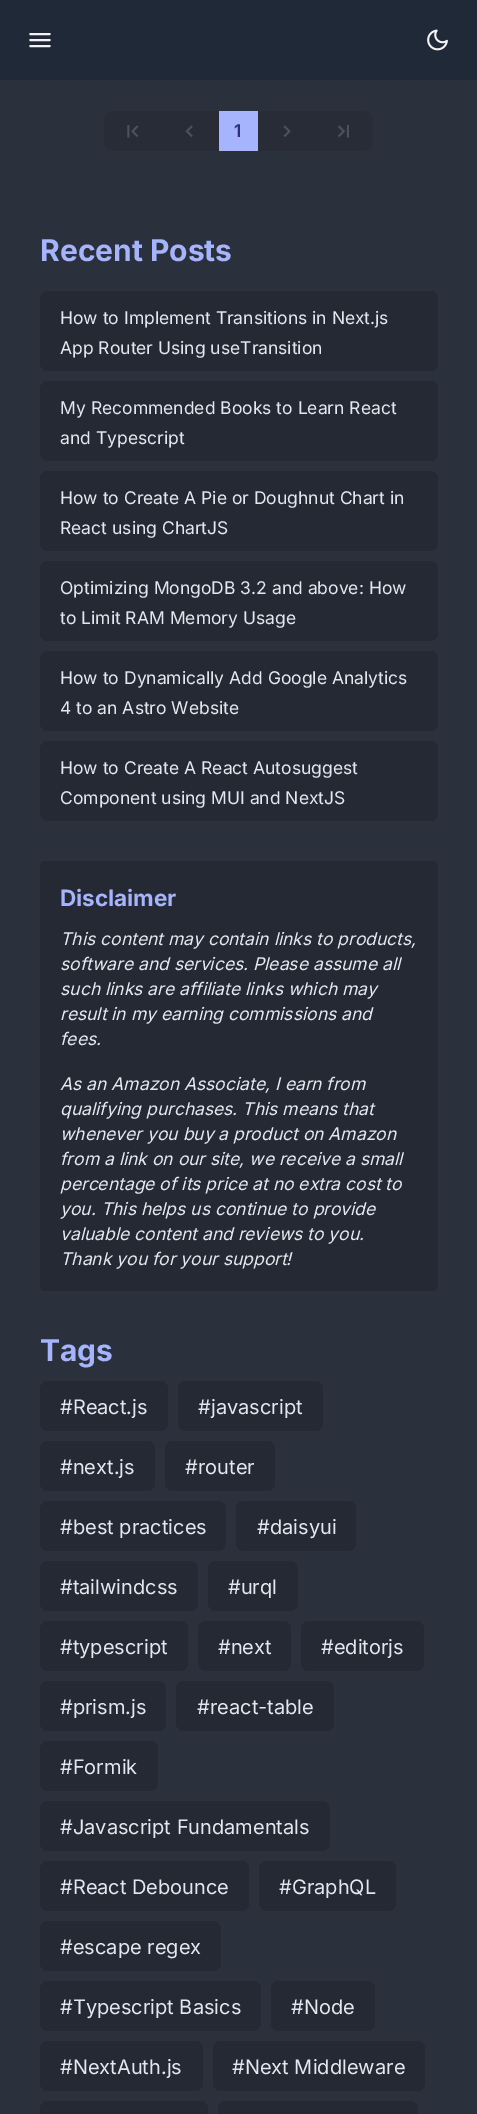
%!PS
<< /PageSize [477 2114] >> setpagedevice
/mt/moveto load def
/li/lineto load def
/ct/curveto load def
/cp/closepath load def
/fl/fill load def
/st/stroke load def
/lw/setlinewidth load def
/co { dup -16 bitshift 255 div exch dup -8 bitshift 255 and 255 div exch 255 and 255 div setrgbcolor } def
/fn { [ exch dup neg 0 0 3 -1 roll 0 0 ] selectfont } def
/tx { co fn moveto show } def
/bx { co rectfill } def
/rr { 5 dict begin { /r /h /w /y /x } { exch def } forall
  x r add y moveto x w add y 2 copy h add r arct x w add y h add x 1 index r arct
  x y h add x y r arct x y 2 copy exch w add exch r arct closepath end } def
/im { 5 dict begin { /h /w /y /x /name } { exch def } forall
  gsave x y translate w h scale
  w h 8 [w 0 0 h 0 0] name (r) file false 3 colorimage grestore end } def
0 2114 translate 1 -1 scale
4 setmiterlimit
0 0 477 2114 16#2A303C bx
0 0 477 80 16#1F2937 bx
16#F3F4F6 co
2.1 lw
1 setlinecap
1 setlinejoin
30.5 40 mt 49.5 40 li 30.5 34 mt 49.5 34 li 30.5 46 mt 49.5 46 li st
(media/1.raw) 427 29 21 22 im
16#272C37 co
114 111 mt 161 111 li 161 151 li 114 151 li 108.5 151 104 146.5 104 141 ct 104 121 li 104 115.5 108.5 111 114 111 ct cp fl
(media/2.raw) 127 125 12 13 im
161 111 58 40 16#272C37 bx
(media/3.raw) 185 125 8 12 im
219 111 39 40 16#A5B4FC bx
258 111 57 40 16#272C37 bx
(media/4.raw) 283 125 8 12 im
315 111 mt 363 111 li 368.5 111 373 115.5 373 121 ct 373 141 li 373 146.5 368.5 151 363 151 ct 315 151 li cp fl
(media/5.raw) 338 125 11 13 im
16#242933 co
40 291 398 80 8 rr fl
40 381 398 80 8 rr fl
40 471 398 80 8 rr fl
40 561 398 80 8 rr fl
40 651 398 80 8 rr fl
40 741 398 80 8 rr fl
40 861 398 430 5 rr fl
40 1381 128 50 8 rr fl
178 1381 145 50 8 rr fl
40 1441 115 50 8 rr fl
165 1441 110 50 8 rr fl
40 1501 186 50 8 rr fl
236 1501 120 50 8 rr fl
40 1561 158 50 8 rr fl
208 1561 90 50 8 rr fl
40 1621 148 50 8 rr fl
198 1621 93 50 8 rr fl
301 1621 123 50 8 rr fl
40 1681 126 50 8 rr fl
176 1681 158 50 8 rr fl
40 1741 118 50 8 rr fl
40 1801 290 50 8 rr fl
40 1861 209 50 8 rr fl
259 1861 137 50 8 rr fl
40 1921 181 50 8 rr fl
40 1981 221 50 8 rr fl
271 1981 104 50 8 rr fl
40 2041 163 50 8 rr fl
213 2041 212 50 8 rr fl
40 2101 168 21 8 rr fl
218 2101 200 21 8 rr fl
(1) 234 137 /Inter-SemiBold 17.5 16#312E81 tx
(Recent Posts) 40 261 /Inter-Bold 30 16#A5B4FC tx
(How to Implement Transitions in Next.js) 60 324 /Inter-Regular 17.5 16#E2E8F0 tx
(App Router Using useTransition) 60 354 /Inter-Regular 17.5 16#E2E8F0 tx
(My Recommended Books to Learn React) 60 414 /Inter-Regular 17.5 16#E2E8F0 tx
(and Typescript) 60 444 /Inter-Regular 17.5 16#E2E8F0 tx
(How to Create A Pie or Doughnut Chart in) 60 504 /Inter-Regular 17.5 16#E2E8F0 tx
(React using ChartJS) 60 534 /Inter-Regular 17.5 16#E2E8F0 tx
(Optimizing MongoDB 3.2 and above: How) 60 594 /Inter-Regular 17.5 16#E2E8F0 tx
(to Limit RAM Memory Usage) 60 624 /Inter-Regular 17.5 16#E2E8F0 tx
(How to Dynamically Add Google Analytics) 60 684 /Inter-Regular 17.5 16#E2E8F0 tx
(4 to an Astro Website) 60 714 /Inter-Regular 17.5 16#E2E8F0 tx
(How to Create A React Autosuggest) 60 774 /Inter-Regular 17.5 16#E2E8F0 tx
(Component using MUI and NextJS) 60 804 /Inter-Regular 17.5 16#E2E8F0 tx
(Disclaimer) 60 906 /Inter-Bold 22.5 16#A5B4FC tx
(This content may contain links to products,) 60 945 /Inter-Italic 17.5 16#E2E8F0 tx
(software and services. Please assume all) 60 970 /Inter-Italic 17.5 16#E2E8F0 tx
(such links are affiliate links which may) 60 995 /Inter-Italic 17.5 16#E2E8F0 tx
(result in my earning commissions and) 60 1020 /Inter-Italic 17.5 16#E2E8F0 tx
(fees.) 60 1045 /Inter-Italic 17.5 16#E2E8F0 tx
(As an Amazon Associate, I earn from) 60 1090 /Inter-Italic 17.5 16#E2E8F0 tx
(qualifying purchases. This means that) 60 1115 /Inter-Italic 17.5 16#E2E8F0 tx
(whenever you buy a product on Amazon) 60 1140 /Inter-Italic 17.5 16#E2E8F0 tx
(from a link on our site, we receive a small) 60 1165 /Inter-Italic 17.5 16#E2E8F0 tx
(percentage of its price at no extra cost to) 60 1190 /Inter-Italic 17.5 16#E2E8F0 tx
(you. This helps us continue to provide) 60 1215 /Inter-Italic 17.5 16#E2E8F0 tx
(valuable content and reviews to you.) 60 1240 /Inter-Italic 17.5 16#E2E8F0 tx
(Thank you for your support!) 60 1265 /Inter-Italic 17.5 16#E2E8F0 tx
(Tags) 40 1361 /Inter-Bold 30 16#A5B4FC tx
(#React.js) 60 1414 /Inter-Regular 20 16#E2E8F0 tx
(#javascript) 198 1414 /Inter-Regular 20 16#E2E8F0 tx
(#next.js) 60 1474 /Inter-Regular 20 16#E2E8F0 tx
(#router) 185 1474 /Inter-Regular 20 16#E2E8F0 tx
(#best practices) 60 1534 /Inter-Regular 20 16#E2E8F0 tx
(#daisyui) 257 1534 /Inter-Regular 20 16#E2E8F0 tx
(#tailwindcss) 60 1594 /Inter-Regular 20 16#E2E8F0 tx
(#urql) 228 1594 /Inter-Regular 20 16#E2E8F0 tx
(#typescript) 60 1654 /Inter-Regular 20 16#E2E8F0 tx
(#next) 218 1654 /Inter-Regular 20 16#E2E8F0 tx
(#editorjs) 321 1654 /Inter-Regular 20 16#E2E8F0 tx
(#prism.js) 60 1714 /Inter-Regular 20 16#E2E8F0 tx
(#react-table) 197 1714 /Inter-Regular 20 16#E2E8F0 tx
(#Formik) 60 1774 /Inter-Regular 20 16#E2E8F0 tx
(#Javascript Fundamentals) 60 1834 /Inter-Regular 20 16#E2E8F0 tx
(#React Debounce) 60 1894 /Inter-Regular 20 16#E2E8F0 tx
(#GraphQL) 279 1894 /Inter-Regular 20 16#E2E8F0 tx
(#escape regex) 60 1954 /Inter-Regular 20 16#E2E8F0 tx
(#Typescript Basics) 60 2014 /Inter-Regular 20 16#E2E8F0 tx
(#Node) 291 2014 /Inter-Regular 20 16#E2E8F0 tx
(#NextAuth.js) 60 2074 /Inter-Regular 20 16#E2E8F0 tx
(#Next Middleware) 232 2074 /Inter-Regular 20 16#E2E8F0 tx
showpage
